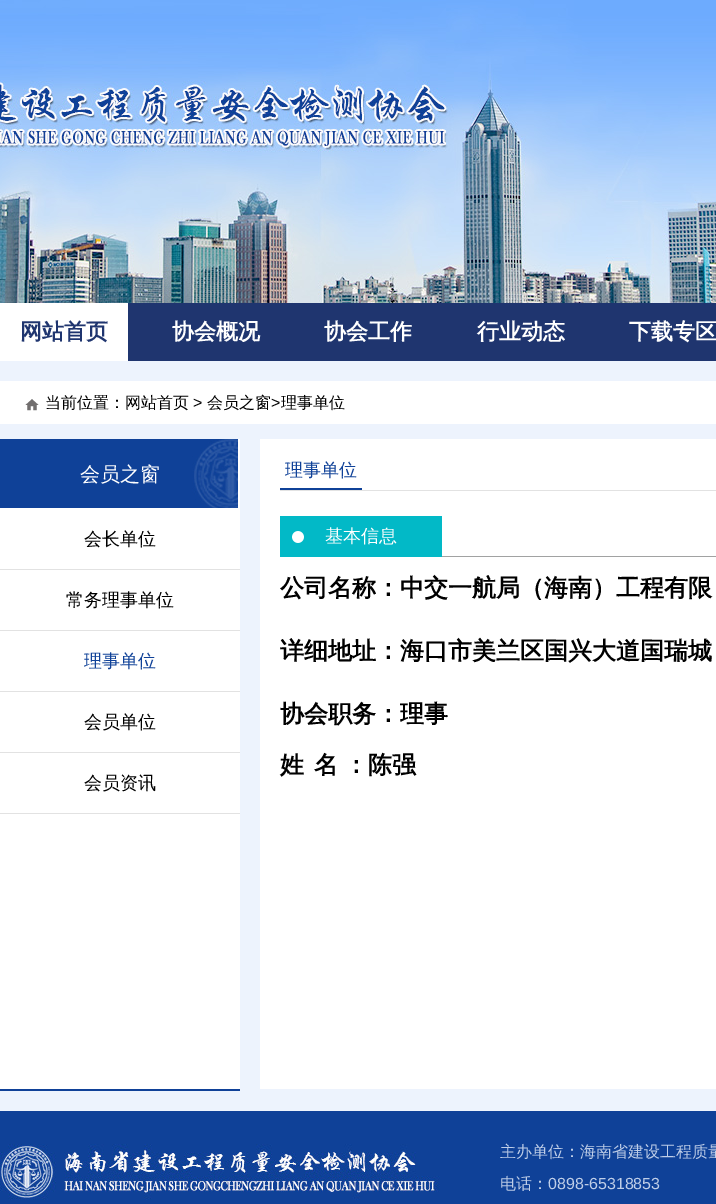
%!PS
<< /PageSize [716 1204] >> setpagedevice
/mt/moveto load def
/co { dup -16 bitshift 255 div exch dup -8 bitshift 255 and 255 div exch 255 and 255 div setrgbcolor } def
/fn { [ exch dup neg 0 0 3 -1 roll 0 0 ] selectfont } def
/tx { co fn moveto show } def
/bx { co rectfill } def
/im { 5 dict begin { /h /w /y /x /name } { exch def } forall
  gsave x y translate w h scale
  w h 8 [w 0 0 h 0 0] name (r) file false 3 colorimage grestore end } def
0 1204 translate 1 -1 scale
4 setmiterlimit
0 0 716 1204 16#EDF3FD bx
(media/1.raw) 0 0 716 303 im
128 303 588 58 16#1F356F bx
0 303 128 58 16#FFFFFF bx
0 381 716 43 16#FFFFFF bx
(media/2.raw) 25 399 14 12 im
0 439 240 650 16#FFFFFF bx
0 1089 240 2 16#0F4198 bx
(media/3.raw) 0 439 238 69 im
0 569 240 1 16#E2E2E2 bx
0 630 240 1 16#E2E2E2 bx
0 691 240 1 16#E2E2E2 bx
0 752 240 1 16#E2E2E2 bx
0 813 240 1 16#E2E2E2 bx
260 439 456 650 16#FFFFFF bx
280 490 436 1 16#E2E2E2 bx
280 488 82 2 16#0F4198 bx
442 556 274 1 16#A1A2A2 bx
280 516 162 41 16#02B9C7 bx
(media/4.raw) 292 531 12 12 im
0 1111 716 93 16#0F4198 bx
(media/5.raw) 0 1144 440 56 im
(网站首页) 20 339 /WenQuanYiZenHei-Bold 22 16#1F356F tx
(协会概况) 172 339 /WenQuanYiZenHei-Bold 22 16#FFFFFF tx
(协会工作) 324 339 /WenQuanYiZenHei-Bold 22 16#FFFFFF tx
(行业动态) 477 339 /WenQuanYiZenHei-Bold 22 16#FFFFFF tx
(下载专区) 629 339 /WenQuanYiZenHei-Bold 22 16#FFFFFF tx
(当前位置：网站首页) 45 408 /WenQuanYiZenHei-Medium 16 16#000000 tx
(>) 193 408 /LiberationSans-Regular 16 16#000000 tx
(会员之窗) 207 408 /WenQuanYiZenHei-Medium 16 16#000000 tx
(>) 271 408 /LiberationSans-Regular 16 16#000000 tx
(理事单位) 281 408 /WenQuanYiZenHei-Medium 16 16#000000 tx
(会员之窗) 80 481 /WenQuanYiZenHei-Medium 20 16#FFFFFF tx
(会长单位) 84 545 /WenQuanYiZenHei-Medium 18 16#000000 tx
(常务理事单位) 66 606 /WenQuanYiZenHei-Medium 18 16#000000 tx
(理事单位) 84 667 /WenQuanYiZenHei-Medium 18 16#0F4198 tx
(会员单位) 84 728 /WenQuanYiZenHei-Medium 18 16#000000 tx
(会员资讯) 84 789 /WenQuanYiZenHei-Medium 18 16#000000 tx
(理事单位) 285 476 /WenQuanYiZenHei-Medium 18 16#0F4198 tx
(基本信息) 325 542 /WenQuanYiZenHei-Medium 18 16#FFFFFF tx
(公司名称：中交一航局（海南）工程有限) 280 596 /WenQuanYiZenHei-Bold 24 16#000000 tx
(详细地址：海口市美兰区国兴大道国瑞城) 280 659 /WenQuanYiZenHei-Bold 24 16#000000 tx
(协会职务：理事) 280 722 /WenQuanYiZenHei-Bold 24 16#000000 tx
(姓) 280 773 /WenQuanYiZenHei-Bold 24 16#000000 tx
314 773 mt -1 0 32 (名 ：陈强) widthshow
(主办单位：海南省建设工程质量) 500 1157 /WenQuanYiZenHei-Medium 16 16#BFCEE8 tx
(电话：) 500 1189 /WenQuanYiZenHei-Medium 16 16#BFCEE8 tx
(0898-65318853) 548 1189 /LiberationSans-Regular 16 16#BFCEE8 tx
showpage
